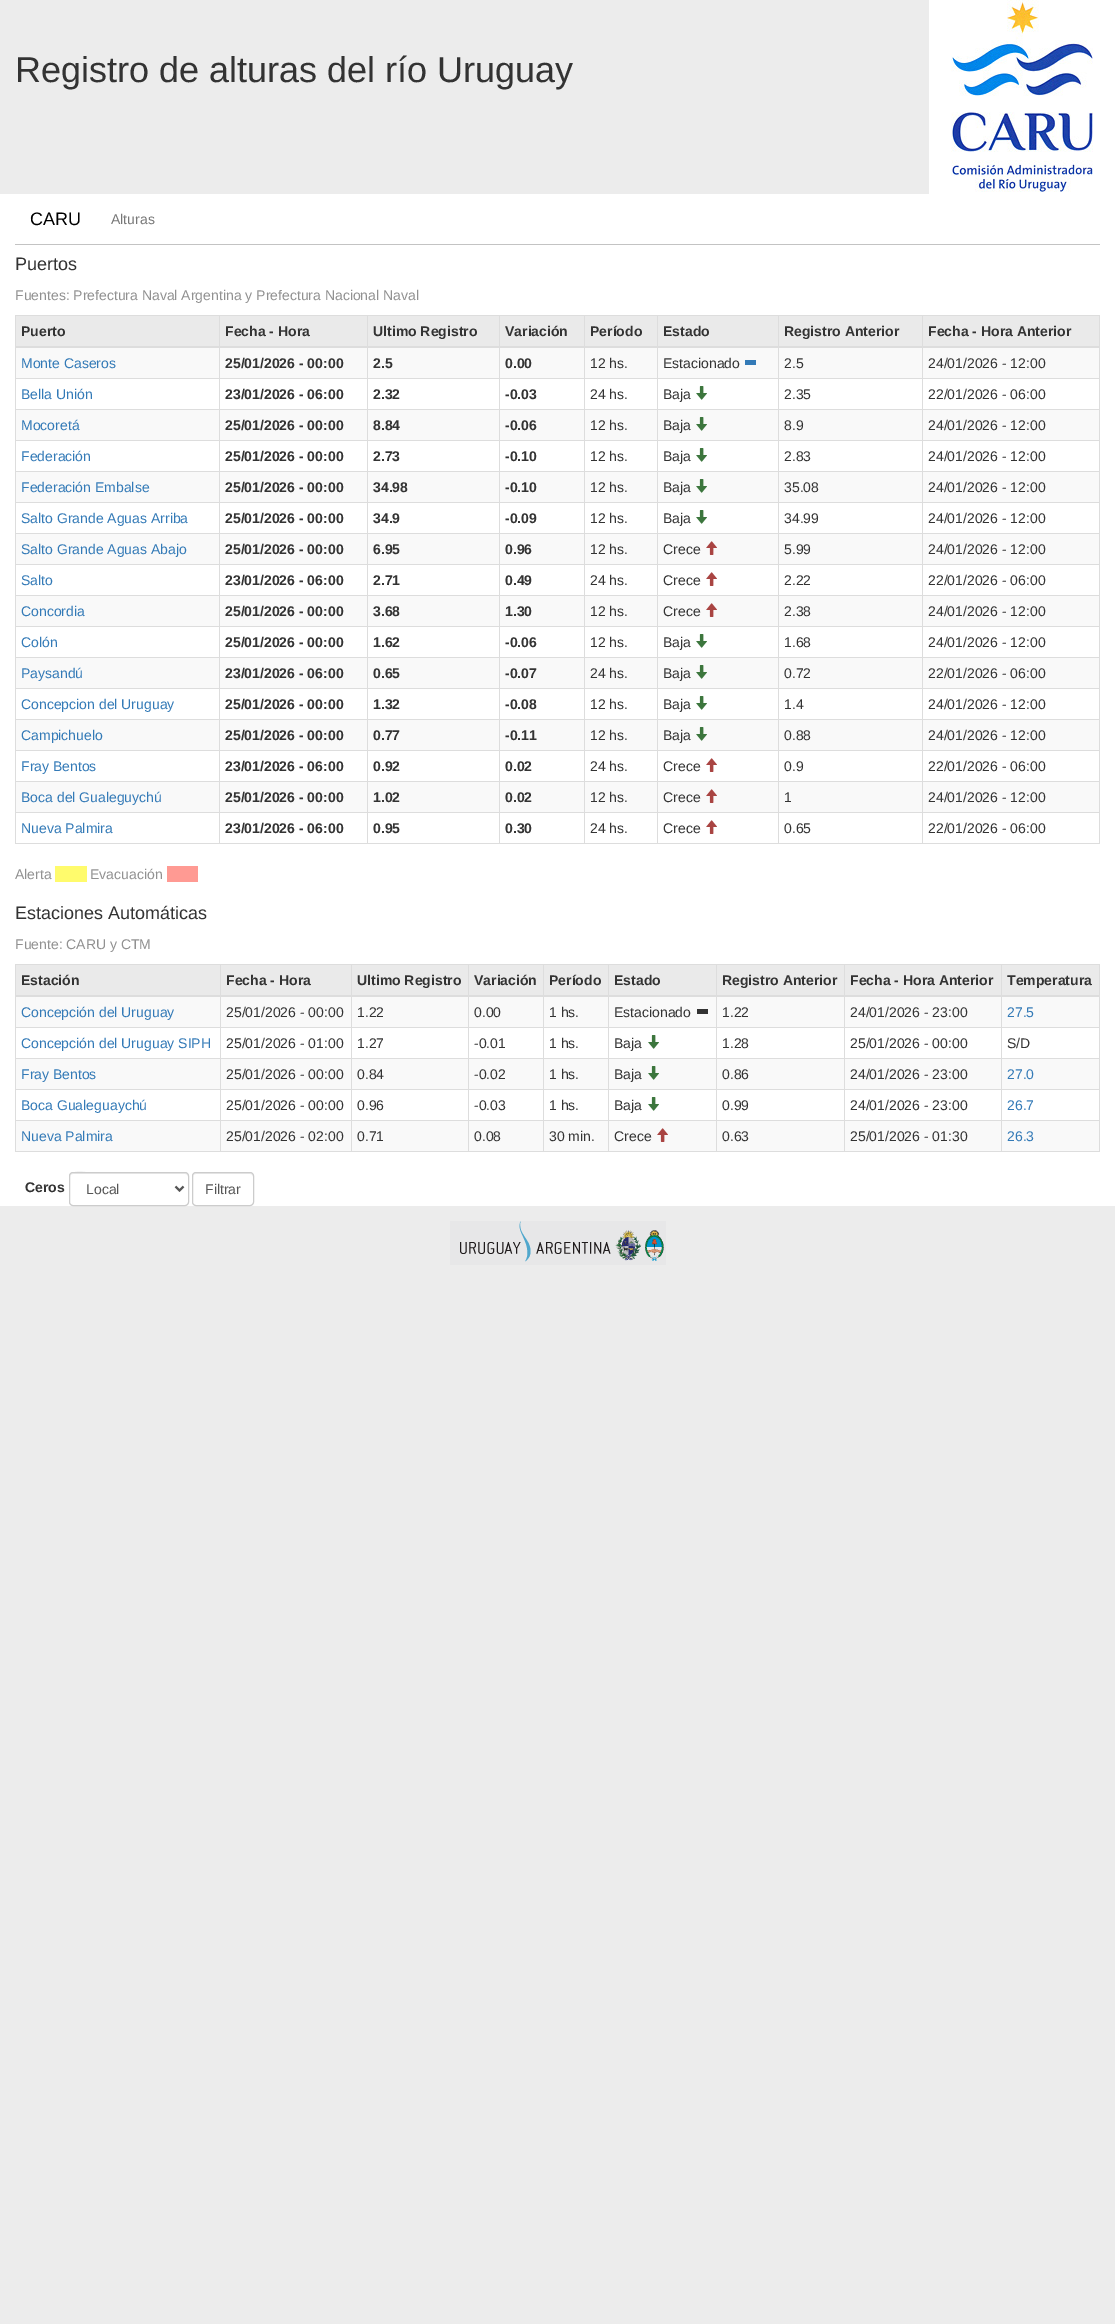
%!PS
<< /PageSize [1115 2324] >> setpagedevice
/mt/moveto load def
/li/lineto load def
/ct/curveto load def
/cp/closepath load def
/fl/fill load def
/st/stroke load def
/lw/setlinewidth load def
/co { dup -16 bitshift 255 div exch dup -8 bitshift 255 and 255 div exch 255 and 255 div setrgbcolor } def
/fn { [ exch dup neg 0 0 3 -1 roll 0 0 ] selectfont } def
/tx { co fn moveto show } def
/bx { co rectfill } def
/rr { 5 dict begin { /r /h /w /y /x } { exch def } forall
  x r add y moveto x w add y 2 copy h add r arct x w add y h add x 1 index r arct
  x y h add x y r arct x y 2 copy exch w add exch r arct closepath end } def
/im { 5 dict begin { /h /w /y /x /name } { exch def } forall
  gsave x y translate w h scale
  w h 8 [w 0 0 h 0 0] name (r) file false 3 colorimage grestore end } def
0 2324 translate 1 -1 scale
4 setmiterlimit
0 0 1115 2324 16#ECECEC bx
929 0 186 194 16#FFFFFF bx
(media/1.raw) 951 0 142 192 im
0 194 1115 978 16#FFFFFF bx
15 244 1085 1 16#C3C3C3 bx
15 315 1085 1 16#DDDDDD bx
1099 315 1 529 16#DDDDDD bx
15 843 1085 1 16#DDDDDD bx
15 315 1 529 16#DDDDDD bx
16 316 1083 30 16#EAEAEA bx
16 348 1083 30 16#F9F9F9 bx
922 378 178 1 16#DDDDDD bx
922 409 178 1 16#DDDDDD bx
16 410 1083 30 16#F9F9F9 bx
922 440 178 1 16#DDDDDD bx
922 471 178 1 16#DDDDDD bx
16 472 1083 30 16#F9F9F9 bx
922 502 178 1 16#DDDDDD bx
922 533 178 1 16#DDDDDD bx
16 534 1083 30 16#F9F9F9 bx
922 564 178 1 16#DDDDDD bx
922 595 178 1 16#DDDDDD bx
16 596 1083 30 16#F9F9F9 bx
922 626 178 1 16#DDDDDD bx
922 657 178 1 16#DDDDDD bx
16 658 1083 30 16#F9F9F9 bx
922 688 178 1 16#DDDDDD bx
922 719 178 1 16#DDDDDD bx
16 720 1083 30 16#F9F9F9 bx
922 750 178 1 16#DDDDDD bx
922 781 178 1 16#DDDDDD bx
16 782 1083 30 16#F9F9F9 bx
922 812 178 1 16#DDDDDD bx
922 812 1 32 16#DDDDDD bx
778 812 145 1 16#DDDDDD bx
922 781 1 32 16#DDDDDD bx
778 781 145 1 16#DDDDDD bx
922 750 1 32 16#DDDDDD bx
778 750 145 1 16#DDDDDD bx
922 719 1 32 16#DDDDDD bx
778 719 145 1 16#DDDDDD bx
922 688 1 32 16#DDDDDD bx
778 688 145 1 16#DDDDDD bx
922 657 1 32 16#DDDDDD bx
778 657 145 1 16#DDDDDD bx
922 626 1 32 16#DDDDDD bx
778 626 145 1 16#DDDDDD bx
922 595 1 32 16#DDDDDD bx
778 595 145 1 16#DDDDDD bx
922 564 1 32 16#DDDDDD bx
778 564 145 1 16#DDDDDD bx
922 533 1 32 16#DDDDDD bx
778 533 145 1 16#DDDDDD bx
922 502 1 32 16#DDDDDD bx
778 502 145 1 16#DDDDDD bx
922 471 1 32 16#DDDDDD bx
778 471 145 1 16#DDDDDD bx
922 440 1 32 16#DDDDDD bx
778 440 145 1 16#DDDDDD bx
922 409 1 32 16#DDDDDD bx
778 409 145 1 16#DDDDDD bx
922 378 1 32 16#DDDDDD bx
778 378 145 1 16#DDDDDD bx
778 812 1 32 16#DDDDDD bx
657 812 122 1 16#DDDDDD bx
778 781 1 32 16#DDDDDD bx
657 781 122 1 16#DDDDDD bx
778 750 1 32 16#DDDDDD bx
657 750 122 1 16#DDDDDD bx
778 719 1 32 16#DDDDDD bx
657 719 122 1 16#DDDDDD bx
778 688 1 32 16#DDDDDD bx
657 688 122 1 16#DDDDDD bx
778 657 1 32 16#DDDDDD bx
657 657 122 1 16#DDDDDD bx
778 626 1 32 16#DDDDDD bx
657 626 122 1 16#DDDDDD bx
778 595 1 32 16#DDDDDD bx
657 595 122 1 16#DDDDDD bx
778 564 1 32 16#DDDDDD bx
657 564 122 1 16#DDDDDD bx
778 533 1 32 16#DDDDDD bx
657 533 122 1 16#DDDDDD bx
778 502 1 32 16#DDDDDD bx
657 502 122 1 16#DDDDDD bx
778 471 1 32 16#DDDDDD bx
657 471 122 1 16#DDDDDD bx
778 440 1 32 16#DDDDDD bx
657 440 122 1 16#DDDDDD bx
778 409 1 32 16#DDDDDD bx
657 409 122 1 16#DDDDDD bx
778 378 1 32 16#DDDDDD bx
657 378 122 1 16#DDDDDD bx
657 812 1 32 16#DDDDDD bx
584 812 74 1 16#DDDDDD bx
657 781 1 32 16#DDDDDD bx
584 781 74 1 16#DDDDDD bx
657 750 1 32 16#DDDDDD bx
584 750 74 1 16#DDDDDD bx
657 719 1 32 16#DDDDDD bx
584 719 74 1 16#DDDDDD bx
657 688 1 32 16#DDDDDD bx
584 688 74 1 16#DDDDDD bx
657 657 1 32 16#DDDDDD bx
584 657 74 1 16#DDDDDD bx
657 626 1 32 16#DDDDDD bx
584 626 74 1 16#DDDDDD bx
657 595 1 32 16#DDDDDD bx
584 595 74 1 16#DDDDDD bx
657 564 1 32 16#DDDDDD bx
584 564 74 1 16#DDDDDD bx
657 533 1 32 16#DDDDDD bx
584 533 74 1 16#DDDDDD bx
657 502 1 32 16#DDDDDD bx
584 502 74 1 16#DDDDDD bx
657 471 1 32 16#DDDDDD bx
584 471 74 1 16#DDDDDD bx
657 440 1 32 16#DDDDDD bx
584 440 74 1 16#DDDDDD bx
657 409 1 32 16#DDDDDD bx
584 409 74 1 16#DDDDDD bx
657 378 1 32 16#DDDDDD bx
584 378 74 1 16#DDDDDD bx
584 812 1 32 16#DDDDDD bx
499 812 86 1 16#DDDDDD bx
584 781 1 32 16#DDDDDD bx
499 781 86 1 16#DDDDDD bx
584 750 1 32 16#DDDDDD bx
499 750 86 1 16#DDDDDD bx
584 719 1 32 16#DDDDDD bx
499 719 86 1 16#DDDDDD bx
584 688 1 32 16#DDDDDD bx
499 688 86 1 16#DDDDDD bx
584 657 1 32 16#DDDDDD bx
499 657 86 1 16#DDDDDD bx
584 626 1 32 16#DDDDDD bx
499 626 86 1 16#DDDDDD bx
584 595 1 32 16#DDDDDD bx
499 595 86 1 16#DDDDDD bx
584 564 1 32 16#DDDDDD bx
499 564 86 1 16#DDDDDD bx
584 533 1 32 16#DDDDDD bx
499 533 86 1 16#DDDDDD bx
584 502 1 32 16#DDDDDD bx
499 502 86 1 16#DDDDDD bx
584 471 1 32 16#DDDDDD bx
499 471 86 1 16#DDDDDD bx
584 440 1 32 16#DDDDDD bx
499 440 86 1 16#DDDDDD bx
584 409 1 32 16#DDDDDD bx
499 409 86 1 16#DDDDDD bx
584 378 1 32 16#DDDDDD bx
499 378 86 1 16#DDDDDD bx
499 812 1 32 16#DDDDDD bx
367 812 133 1 16#DDDDDD bx
499 781 1 32 16#DDDDDD bx
367 781 133 1 16#DDDDDD bx
499 750 1 32 16#DDDDDD bx
367 750 133 1 16#DDDDDD bx
499 719 1 32 16#DDDDDD bx
367 719 133 1 16#DDDDDD bx
499 688 1 32 16#DDDDDD bx
367 688 133 1 16#DDDDDD bx
499 657 1 32 16#DDDDDD bx
367 657 133 1 16#DDDDDD bx
499 626 1 32 16#DDDDDD bx
367 626 133 1 16#DDDDDD bx
499 595 1 32 16#DDDDDD bx
367 595 133 1 16#DDDDDD bx
499 564 1 32 16#DDDDDD bx
367 564 133 1 16#DDDDDD bx
499 533 1 32 16#DDDDDD bx
367 533 133 1 16#DDDDDD bx
499 502 1 32 16#DDDDDD bx
367 502 133 1 16#DDDDDD bx
499 471 1 32 16#DDDDDD bx
367 471 133 1 16#DDDDDD bx
499 440 1 32 16#DDDDDD bx
367 440 133 1 16#DDDDDD bx
499 409 1 32 16#DDDDDD bx
367 409 133 1 16#DDDDDD bx
499 378 1 32 16#DDDDDD bx
367 378 133 1 16#DDDDDD bx
367 812 1 32 16#DDDDDD bx
219 812 149 1 16#DDDDDD bx
367 781 1 32 16#DDDDDD bx
219 781 149 1 16#DDDDDD bx
367 750 1 32 16#DDDDDD bx
219 750 149 1 16#DDDDDD bx
367 719 1 32 16#DDDDDD bx
219 719 149 1 16#DDDDDD bx
367 688 1 32 16#DDDDDD bx
219 688 149 1 16#DDDDDD bx
367 657 1 32 16#DDDDDD bx
219 657 149 1 16#DDDDDD bx
367 626 1 32 16#DDDDDD bx
219 626 149 1 16#DDDDDD bx
367 595 1 32 16#DDDDDD bx
219 595 149 1 16#DDDDDD bx
367 564 1 32 16#DDDDDD bx
219 564 149 1 16#DDDDDD bx
367 533 1 32 16#DDDDDD bx
219 533 149 1 16#DDDDDD bx
367 502 1 32 16#DDDDDD bx
219 502 149 1 16#DDDDDD bx
367 471 1 32 16#DDDDDD bx
219 471 149 1 16#DDDDDD bx
367 440 1 32 16#DDDDDD bx
219 440 149 1 16#DDDDDD bx
367 409 1 32 16#DDDDDD bx
219 409 149 1 16#DDDDDD bx
367 378 1 32 16#DDDDDD bx
219 378 149 1 16#DDDDDD bx
219 812 1 32 16#DDDDDD bx
15 812 205 1 16#DDDDDD bx
219 781 1 32 16#DDDDDD bx
15 781 205 1 16#DDDDDD bx
219 750 1 32 16#DDDDDD bx
15 750 205 1 16#DDDDDD bx
219 719 1 32 16#DDDDDD bx
15 719 205 1 16#DDDDDD bx
219 688 1 32 16#DDDDDD bx
15 688 205 1 16#DDDDDD bx
219 657 1 32 16#DDDDDD bx
15 657 205 1 16#DDDDDD bx
219 626 1 32 16#DDDDDD bx
15 626 205 1 16#DDDDDD bx
219 595 1 32 16#DDDDDD bx
15 595 205 1 16#DDDDDD bx
219 564 1 32 16#DDDDDD bx
15 564 205 1 16#DDDDDD bx
219 533 1 32 16#DDDDDD bx
15 533 205 1 16#DDDDDD bx
219 502 1 32 16#DDDDDD bx
15 502 205 1 16#DDDDDD bx
219 471 1 32 16#DDDDDD bx
15 471 205 1 16#DDDDDD bx
219 440 1 32 16#DDDDDD bx
15 440 205 1 16#DDDDDD bx
219 409 1 32 16#DDDDDD bx
15 409 205 1 16#DDDDDD bx
219 378 1 32 16#DDDDDD bx
15 378 205 1 16#DDDDDD bx
219 315 1 64 16#DDDDDD bx
367 315 1 64 16#DDDDDD bx
499 315 1 64 16#DDDDDD bx
584 315 1 64 16#DDDDDD bx
657 315 1 64 16#DDDDDD bx
778 315 1 64 16#DDDDDD bx
922 315 1 64 16#DDDDDD bx
15 346 1085 2 16#DDDDDD bx
745 360 11 5 16#337AB7 bx
(media/2.raw) 696 386 11 14 im
(media/3.raw) 696 417 11 14 im
(media/2.raw) 696 448 11 14 im
(media/3.raw) 696 479 11 14 im
(media/2.raw) 696 510 11 14 im
(media/4.raw) 706 541 11 14 im
(media/5.raw) 706 572 11 14 im
(media/4.raw) 706 603 11 14 im
(media/2.raw) 696 634 11 14 im
(media/3.raw) 696 665 11 14 im
(media/2.raw) 696 696 11 14 im
(media/3.raw) 696 727 11 14 im
(media/5.raw) 706 758 11 14 im
(media/4.raw) 706 789 11 14 im
(media/5.raw) 706 820 11 14 im
55 866 32 16 16#FFFB6C bx
167 866 31 16 16#FF9A93 bx
15 964 1085 1 16#DDDDDD bx
1099 964 1 188 16#DDDDDD bx
15 1151 1085 1 16#DDDDDD bx
15 964 1 188 16#DDDDDD bx
16 965 1083 30 16#EAEAEA bx
16 997 1083 30 16#F9F9F9 bx
1001 1027 99 1 16#DDDDDD bx
1001 1058 99 1 16#DDDDDD bx
16 1059 1083 30 16#F9F9F9 bx
1001 1089 99 1 16#DDDDDD bx
1001 1120 99 1 16#DDDDDD bx
16 1121 1083 30 16#F9F9F9 bx
1001 1120 1 32 16#DDDDDD bx
844 1120 158 1 16#DDDDDD bx
1001 1089 1 32 16#DDDDDD bx
844 1089 158 1 16#DDDDDD bx
1001 1058 1 32 16#DDDDDD bx
844 1058 158 1 16#DDDDDD bx
1001 1027 1 32 16#DDDDDD bx
844 1027 158 1 16#DDDDDD bx
844 1120 1 32 16#DDDDDD bx
716 1120 129 1 16#DDDDDD bx
844 1089 1 32 16#DDDDDD bx
716 1089 129 1 16#DDDDDD bx
844 1058 1 32 16#DDDDDD bx
716 1058 129 1 16#DDDDDD bx
844 1027 1 32 16#DDDDDD bx
716 1027 129 1 16#DDDDDD bx
716 1120 1 32 16#DDDDDD bx
608 1120 109 1 16#DDDDDD bx
716 1089 1 32 16#DDDDDD bx
608 1089 109 1 16#DDDDDD bx
716 1058 1 32 16#DDDDDD bx
608 1058 109 1 16#DDDDDD bx
716 1027 1 32 16#DDDDDD bx
608 1027 109 1 16#DDDDDD bx
608 1120 1 32 16#DDDDDD bx
543 1120 66 1 16#DDDDDD bx
608 1089 1 32 16#DDDDDD bx
543 1089 66 1 16#DDDDDD bx
608 1058 1 32 16#DDDDDD bx
543 1058 66 1 16#DDDDDD bx
608 1027 1 32 16#DDDDDD bx
543 1027 66 1 16#DDDDDD bx
543 1120 1 32 16#DDDDDD bx
468 1120 76 1 16#DDDDDD bx
543 1089 1 32 16#DDDDDD bx
468 1089 76 1 16#DDDDDD bx
543 1058 1 32 16#DDDDDD bx
468 1058 76 1 16#DDDDDD bx
543 1027 1 32 16#DDDDDD bx
468 1027 76 1 16#DDDDDD bx
468 1120 1 32 16#DDDDDD bx
351 1120 118 1 16#DDDDDD bx
468 1089 1 32 16#DDDDDD bx
351 1089 118 1 16#DDDDDD bx
468 1058 1 32 16#DDDDDD bx
351 1058 118 1 16#DDDDDD bx
468 1027 1 32 16#DDDDDD bx
351 1027 118 1 16#DDDDDD bx
351 1120 1 32 16#DDDDDD bx
220 1120 132 1 16#DDDDDD bx
351 1089 1 32 16#DDDDDD bx
220 1089 132 1 16#DDDDDD bx
351 1058 1 32 16#DDDDDD bx
220 1058 132 1 16#DDDDDD bx
351 1027 1 32 16#DDDDDD bx
220 1027 132 1 16#DDDDDD bx
220 1120 1 32 16#DDDDDD bx
15 1120 206 1 16#DDDDDD bx
220 1089 1 32 16#DDDDDD bx
15 1089 206 1 16#DDDDDD bx
220 1058 1 32 16#DDDDDD bx
15 1058 206 1 16#DDDDDD bx
220 1027 1 32 16#DDDDDD bx
15 1027 206 1 16#DDDDDD bx
220 964 1 64 16#DDDDDD bx
351 964 1 64 16#DDDDDD bx
468 964 1 64 16#DDDDDD bx
543 964 1 64 16#DDDDDD bx
608 964 1 64 16#DDDDDD bx
716 964 1 64 16#DDDDDD bx
844 964 1 64 16#DDDDDD bx
1001 964 1 64 16#DDDDDD bx
15 995 1085 2 16#DDDDDD bx
697 1009 11 5 16#333333 bx
(media/2.raw) 648 1035 11 14 im
(media/3.raw) 648 1066 11 14 im
(media/2.raw) 648 1097 11 14 im
(media/4.raw) 657 1128 11 14 im
0 1172 1115 34 16#FFFFFF bx
16#ECECEC co
73 1174 mt 185 1174 li 187 1174 188 1175 188 1177 ct 188 1175 187 1173 185 1173 ct 92 1173 li 90 1173 70 1168 70 1177 ct 70 1175 71 1174 73 1174 ct cp fl
16#CCCCCC co
69.5 1172.5 119 33 3.5 rr st
16#555555 co
2 lw
175.5 1186.5 mt 179.5 1190.5 li 183.5 1186.5 li st
16#ECECEC co
196 1174 mt 250 1174 li 252 1174 253 1175 253 1177 ct 253 1171 245 1173 241 1173 ct 205 1173 li 201 1173 193 1171 193 1177 ct 193 1175 194 1174 196 1174 ct cp fl
16#CCCCCC co
1 lw
192.5 1172.5 61 33 3.5 rr st
(media/6.raw) 450 1221 216 44 im
(Registro de alturas del río Uruguay) 15 82 /LiberationSans-Regular 36 16#333333 tx
(CARU) 30 225 /LiberationSans-Regular 18 16#000000 tx
(Alturas) 111 224 /LiberationSans-Regular 14 16#777777 tx
(Puertos) 15 270 /LiberationSans-Regular 18 16#333333 tx
(Fuentes: Prefectura Naval Argentina y Prefectura Nacional Naval) 15 300 /LiberationSans-Regular 14 16#919191 tx
(Puerto) 21 336 /LiberationSans-Bold 14 16#333333 tx
(Fecha - Hora) 225 336 /LiberationSans-Bold 14 16#333333 tx
(Ultimo Registro) 373 336 /LiberationSans-Bold 14 16#333333 tx
(Variación) 505 336 /LiberationSans-Bold 14 16#333333 tx
(Período) 590 336 /LiberationSans-Bold 14 16#333333 tx
(Estado) 663 336 /LiberationSans-Bold 14 16#333333 tx
(Registro Anterior) 784 336 /LiberationSans-Bold 14 16#333333 tx
(Fecha - Hora Anterior) 928 336 /LiberationSans-Bold 14 16#333333 tx
(Monte Caseros) 21 368 /LiberationSans-Regular 14 16#337AB7 tx
(25/01/2026 - 00:00) 225 368 /LiberationSans-Bold 14 16#333333 tx
(2.5) 373 368 /LiberationSans-Bold 14 16#333333 tx
(0.00) 505 368 /LiberationSans-Bold 14 16#333333 tx
(12 hs.) 590 368 /LiberationSans-Regular 14 16#333333 tx
(Estacionado) 663 368 /LiberationSans-Regular 14 16#333333 tx
(2.5) 784 368 /LiberationSans-Regular 14 16#333333 tx
(24/01/2026 - 12:00) 928 368 /LiberationSans-Regular 14 16#333333 tx
(Bella Unión) 21 399 /LiberationSans-Regular 14 16#337AB7 tx
(23/01/2026 - 06:00) 225 399 /LiberationSans-Bold 14 16#333333 tx
(2.32) 373 399 /LiberationSans-Bold 14 16#333333 tx
(-0.03) 505 399 /LiberationSans-Bold 14 16#333333 tx
(24 hs.) 590 399 /LiberationSans-Regular 14 16#333333 tx
(Baja) 663 399 /LiberationSans-Regular 14 16#333333 tx
(2.35) 784 399 /LiberationSans-Regular 14 16#333333 tx
(22/01/2026 - 06:00) 928 399 /LiberationSans-Regular 14 16#333333 tx
(Mocoretá) 21 430 /LiberationSans-Regular 14 16#337AB7 tx
(25/01/2026 - 00:00) 225 430 /LiberationSans-Bold 14 16#333333 tx
(8.84) 373 430 /LiberationSans-Bold 14 16#333333 tx
(-0.06) 505 430 /LiberationSans-Bold 14 16#333333 tx
(12 hs.) 590 430 /LiberationSans-Regular 14 16#333333 tx
(Baja) 663 430 /LiberationSans-Regular 14 16#333333 tx
(8.9) 784 430 /LiberationSans-Regular 14 16#333333 tx
(24/01/2026 - 12:00) 928 430 /LiberationSans-Regular 14 16#333333 tx
(Federación) 21 461 /LiberationSans-Regular 14 16#337AB7 tx
(25/01/2026 - 00:00) 225 461 /LiberationSans-Bold 14 16#333333 tx
(2.73) 373 461 /LiberationSans-Bold 14 16#333333 tx
(-0.10) 505 461 /LiberationSans-Bold 14 16#333333 tx
(12 hs.) 590 461 /LiberationSans-Regular 14 16#333333 tx
(Baja) 663 461 /LiberationSans-Regular 14 16#333333 tx
(2.83) 784 461 /LiberationSans-Regular 14 16#333333 tx
(24/01/2026 - 12:00) 928 461 /LiberationSans-Regular 14 16#333333 tx
(Federación Embalse) 21 492 /LiberationSans-Regular 14 16#337AB7 tx
(25/01/2026 - 00:00) 225 492 /LiberationSans-Bold 14 16#333333 tx
(34.98) 373 492 /LiberationSans-Bold 14 16#333333 tx
(-0.10) 505 492 /LiberationSans-Bold 14 16#333333 tx
(12 hs.) 590 492 /LiberationSans-Regular 14 16#333333 tx
(Baja) 663 492 /LiberationSans-Regular 14 16#333333 tx
(35.08) 784 492 /LiberationSans-Regular 14 16#333333 tx
(24/01/2026 - 12:00) 928 492 /LiberationSans-Regular 14 16#333333 tx
(Salto Grande Aguas Arriba) 21 523 /LiberationSans-Regular 14 16#337AB7 tx
(25/01/2026 - 00:00) 225 523 /LiberationSans-Bold 14 16#333333 tx
(34.9) 373 523 /LiberationSans-Bold 14 16#333333 tx
(-0.09) 505 523 /LiberationSans-Bold 14 16#333333 tx
(12 hs.) 590 523 /LiberationSans-Regular 14 16#333333 tx
(Baja) 663 523 /LiberationSans-Regular 14 16#333333 tx
(34.99) 784 523 /LiberationSans-Regular 14 16#333333 tx
(24/01/2026 - 12:00) 928 523 /LiberationSans-Regular 14 16#333333 tx
(Salto Grande Aguas Abajo) 21 554 /LiberationSans-Regular 14 16#337AB7 tx
(25/01/2026 - 00:00) 225 554 /LiberationSans-Bold 14 16#333333 tx
(6.95) 373 554 /LiberationSans-Bold 14 16#333333 tx
(0.96) 505 554 /LiberationSans-Bold 14 16#333333 tx
(12 hs.) 590 554 /LiberationSans-Regular 14 16#333333 tx
(Crece) 663 554 /LiberationSans-Regular 14 16#333333 tx
(5.99) 784 554 /LiberationSans-Regular 14 16#333333 tx
(24/01/2026 - 12:00) 928 554 /LiberationSans-Regular 14 16#333333 tx
(Salto) 21 585 /LiberationSans-Regular 14 16#337AB7 tx
(23/01/2026 - 06:00) 225 585 /LiberationSans-Bold 14 16#333333 tx
(2.71) 373 585 /LiberationSans-Bold 14 16#333333 tx
(0.49) 505 585 /LiberationSans-Bold 14 16#333333 tx
(24 hs.) 590 585 /LiberationSans-Regular 14 16#333333 tx
(Crece) 663 585 /LiberationSans-Regular 14 16#333333 tx
(2.22) 784 585 /LiberationSans-Regular 14 16#333333 tx
(22/01/2026 - 06:00) 928 585 /LiberationSans-Regular 14 16#333333 tx
(Concordia) 21 616 /LiberationSans-Regular 14 16#337AB7 tx
(25/01/2026 - 00:00) 225 616 /LiberationSans-Bold 14 16#333333 tx
(3.68) 373 616 /LiberationSans-Bold 14 16#333333 tx
(1.30) 505 616 /LiberationSans-Bold 14 16#333333 tx
(12 hs.) 590 616 /LiberationSans-Regular 14 16#333333 tx
(Crece) 663 616 /LiberationSans-Regular 14 16#333333 tx
(2.38) 784 616 /LiberationSans-Regular 14 16#333333 tx
(24/01/2026 - 12:00) 928 616 /LiberationSans-Regular 14 16#333333 tx
(Colón) 21 647 /LiberationSans-Regular 14 16#337AB7 tx
(25/01/2026 - 00:00) 225 647 /LiberationSans-Bold 14 16#333333 tx
(1.62) 373 647 /LiberationSans-Bold 14 16#333333 tx
(-0.06) 505 647 /LiberationSans-Bold 14 16#333333 tx
(12 hs.) 590 647 /LiberationSans-Regular 14 16#333333 tx
(Baja) 663 647 /LiberationSans-Regular 14 16#333333 tx
(1.68) 784 647 /LiberationSans-Regular 14 16#333333 tx
(24/01/2026 - 12:00) 928 647 /LiberationSans-Regular 14 16#333333 tx
(Paysandú) 21 678 /LiberationSans-Regular 14 16#337AB7 tx
(23/01/2026 - 06:00) 225 678 /LiberationSans-Bold 14 16#333333 tx
(0.65) 373 678 /LiberationSans-Bold 14 16#333333 tx
(-0.07) 505 678 /LiberationSans-Bold 14 16#333333 tx
(24 hs.) 590 678 /LiberationSans-Regular 14 16#333333 tx
(Baja) 663 678 /LiberationSans-Regular 14 16#333333 tx
(0.72) 784 678 /LiberationSans-Regular 14 16#333333 tx
(22/01/2026 - 06:00) 928 678 /LiberationSans-Regular 14 16#333333 tx
(Concepcion del Uruguay) 21 709 /LiberationSans-Regular 14 16#337AB7 tx
(25/01/2026 - 00:00) 225 709 /LiberationSans-Bold 14 16#333333 tx
(1.32) 373 709 /LiberationSans-Bold 14 16#333333 tx
(-0.08) 505 709 /LiberationSans-Bold 14 16#333333 tx
(12 hs.) 590 709 /LiberationSans-Regular 14 16#333333 tx
(Baja) 663 709 /LiberationSans-Regular 14 16#333333 tx
(1.4) 784 709 /LiberationSans-Regular 14 16#333333 tx
(24/01/2026 - 12:00) 928 709 /LiberationSans-Regular 14 16#333333 tx
(Campichuelo) 21 740 /LiberationSans-Regular 14 16#337AB7 tx
(25/01/2026 - 00:00) 225 740 /LiberationSans-Bold 14 16#333333 tx
(0.77) 373 740 /LiberationSans-Bold 14 16#333333 tx
(-0.11) 505 740 /LiberationSans-Bold 14 16#333333 tx
(12 hs.) 590 740 /LiberationSans-Regular 14 16#333333 tx
(Baja) 663 740 /LiberationSans-Regular 14 16#333333 tx
(0.88) 784 740 /LiberationSans-Regular 14 16#333333 tx
(24/01/2026 - 12:00) 928 740 /LiberationSans-Regular 14 16#333333 tx
(Fray Bentos) 21 771 /LiberationSans-Regular 14 16#337AB7 tx
(23/01/2026 - 06:00) 225 771 /LiberationSans-Bold 14 16#333333 tx
(0.92) 373 771 /LiberationSans-Bold 14 16#333333 tx
(0.02) 505 771 /LiberationSans-Bold 14 16#333333 tx
(24 hs.) 590 771 /LiberationSans-Regular 14 16#333333 tx
(Crece) 663 771 /LiberationSans-Regular 14 16#333333 tx
(0.9) 784 771 /LiberationSans-Regular 14 16#333333 tx
(22/01/2026 - 06:00) 928 771 /LiberationSans-Regular 14 16#333333 tx
(Boca del Gualeguychú) 21 802 /LiberationSans-Regular 14 16#337AB7 tx
(25/01/2026 - 00:00) 225 802 /LiberationSans-Bold 14 16#333333 tx
(1.02) 373 802 /LiberationSans-Bold 14 16#333333 tx
(0.02) 505 802 /LiberationSans-Bold 14 16#333333 tx
(12 hs.) 590 802 /LiberationSans-Regular 14 16#333333 tx
(Crece) 663 802 /LiberationSans-Regular 14 16#333333 tx
(1) 784 802 /LiberationSans-Regular 14 16#333333 tx
(24/01/2026 - 12:00) 928 802 /LiberationSans-Regular 14 16#333333 tx
(Nueva Palmira) 21 833 /LiberationSans-Regular 14 16#337AB7 tx
(23/01/2026 - 06:00) 225 833 /LiberationSans-Bold 14 16#333333 tx
(0.95) 373 833 /LiberationSans-Bold 14 16#333333 tx
(0.30) 505 833 /LiberationSans-Bold 14 16#333333 tx
(24 hs.) 590 833 /LiberationSans-Regular 14 16#333333 tx
(Crece) 663 833 /LiberationSans-Regular 14 16#333333 tx
(0.65) 784 833 /LiberationSans-Regular 14 16#333333 tx
(22/01/2026 - 06:00) 928 833 /LiberationSans-Regular 14 16#333333 tx
(Alerta) 15 879 /LiberationSans-Regular 14 16#919191 tx
(Evacuación) 90 879 /LiberationSans-Regular 14 16#919191 tx
(Estaciones Automáticas) 15 919 /LiberationSans-Regular 18 16#333333 tx
(Fuente: CARU y CTM) 15 949 /LiberationSans-Regular 14 16#919191 tx
(Estación) 21 985 /LiberationSans-Bold 14 16#333333 tx
(Fecha - Hora) 226 985 /LiberationSans-Bold 14 16#333333 tx
(Ultimo Registro) 357 985 /LiberationSans-Bold 14 16#333333 tx
(Variación) 474 985 /LiberationSans-Bold 14 16#333333 tx
(Período) 549 985 /LiberationSans-Bold 14 16#333333 tx
(Estado) 614 985 /LiberationSans-Bold 14 16#333333 tx
(Registro Anterior) 722 985 /LiberationSans-Bold 14 16#333333 tx
(Fecha - Hora Anterior) 850 985 /LiberationSans-Bold 14 16#333333 tx
(Temperatura) 1007 985 /LiberationSans-Bold 14 16#333333 tx
(Concepción del Uruguay) 21 1017 /LiberationSans-Regular 14 16#337AB7 tx
(25/01/2026 - 00:00) 226 1017 /LiberationSans-Regular 14 16#333333 tx
(1.22) 357 1017 /LiberationSans-Regular 14 16#333333 tx
(0.00) 474 1017 /LiberationSans-Regular 14 16#333333 tx
(1 hs.) 549 1017 /LiberationSans-Regular 14 16#333333 tx
(Estacionado) 614 1017 /LiberationSans-Regular 14 16#333333 tx
(1.22) 722 1017 /LiberationSans-Regular 14 16#333333 tx
(24/01/2026 - 23:00) 850 1017 /LiberationSans-Regular 14 16#333333 tx
(27.5) 1007 1017 /LiberationSans-Regular 14 16#337AB7 tx
(Concepción del Uruguay SIPH) 21 1048 /LiberationSans-Regular 14 16#337AB7 tx
(25/01/2026 - 01:00) 226 1048 /LiberationSans-Regular 14 16#333333 tx
(1.27) 357 1048 /LiberationSans-Regular 14 16#333333 tx
(-0.01) 474 1048 /LiberationSans-Regular 14 16#333333 tx
(1 hs.) 549 1048 /LiberationSans-Regular 14 16#333333 tx
(Baja) 614 1048 /LiberationSans-Regular 14 16#333333 tx
(1.28) 722 1048 /LiberationSans-Regular 14 16#333333 tx
(25/01/2026 - 00:00) 850 1048 /LiberationSans-Regular 14 16#333333 tx
(S/D) 1007 1048 /LiberationSans-Regular 14 16#333333 tx
(Fray Bentos) 21 1079 /LiberationSans-Regular 14 16#337AB7 tx
(25/01/2026 - 00:00) 226 1079 /LiberationSans-Regular 14 16#333333 tx
(0.84) 357 1079 /LiberationSans-Regular 14 16#333333 tx
(-0.02) 474 1079 /LiberationSans-Regular 14 16#333333 tx
(1 hs.) 549 1079 /LiberationSans-Regular 14 16#333333 tx
(Baja) 614 1079 /LiberationSans-Regular 14 16#333333 tx
(0.86) 722 1079 /LiberationSans-Regular 14 16#333333 tx
(24/01/2026 - 23:00) 850 1079 /LiberationSans-Regular 14 16#333333 tx
(27.0) 1007 1079 /LiberationSans-Regular 14 16#337AB7 tx
(Boca Gualeguaychú) 21 1110 /LiberationSans-Regular 14 16#337AB7 tx
(25/01/2026 - 00:00) 226 1110 /LiberationSans-Regular 14 16#333333 tx
(0.96) 357 1110 /LiberationSans-Regular 14 16#333333 tx
(-0.03) 474 1110 /LiberationSans-Regular 14 16#333333 tx
(1 hs.) 549 1110 /LiberationSans-Regular 14 16#333333 tx
(Baja) 614 1110 /LiberationSans-Regular 14 16#333333 tx
(0.99) 722 1110 /LiberationSans-Regular 14 16#333333 tx
(24/01/2026 - 23:00) 850 1110 /LiberationSans-Regular 14 16#333333 tx
(26.7) 1007 1110 /LiberationSans-Regular 14 16#337AB7 tx
(Nueva Palmira) 21 1141 /LiberationSans-Regular 14 16#337AB7 tx
(25/01/2026 - 02:00) 226 1141 /LiberationSans-Regular 14 16#333333 tx
(0.71) 357 1141 /LiberationSans-Regular 14 16#333333 tx
(0.08) 474 1141 /LiberationSans-Regular 14 16#333333 tx
(30 min.) 549 1141 /LiberationSans-Regular 14 16#333333 tx
(Crece) 614 1141 /LiberationSans-Regular 14 16#333333 tx
(0.63) 722 1141 /LiberationSans-Regular 14 16#333333 tx
(25/01/2026 - 01:30) 850 1141 /LiberationSans-Regular 14 16#333333 tx
(26.3) 1007 1141 /LiberationSans-Regular 14 16#337AB7 tx
(Ceros) 25 1192 /LiberationSans-Bold 14 16#333333 tx
(Local) 86 1194 /LiberationSans-Regular 14 16#555555 tx
(Filtrar) 205 1194 /LiberationSans-Regular 14 16#555555 tx
showpage
